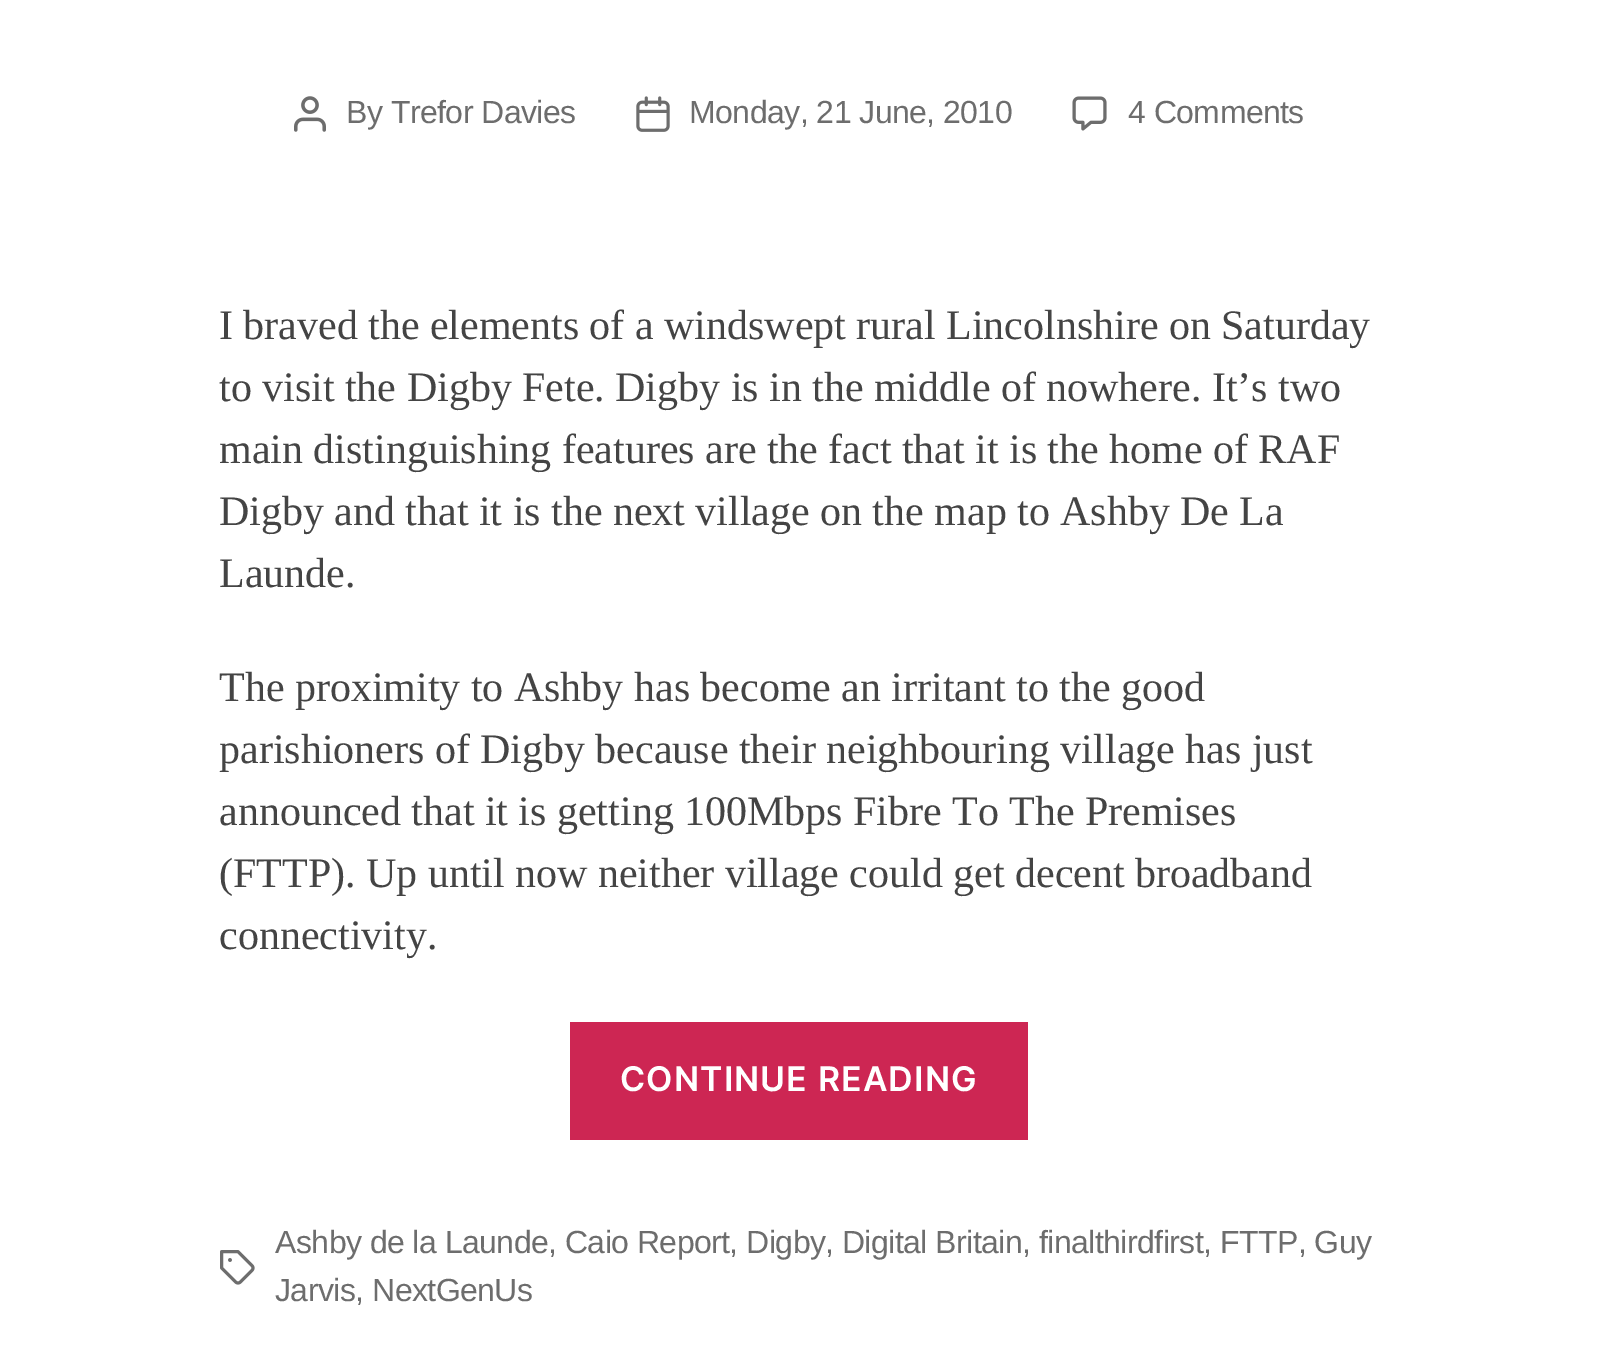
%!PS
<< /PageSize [1597 1365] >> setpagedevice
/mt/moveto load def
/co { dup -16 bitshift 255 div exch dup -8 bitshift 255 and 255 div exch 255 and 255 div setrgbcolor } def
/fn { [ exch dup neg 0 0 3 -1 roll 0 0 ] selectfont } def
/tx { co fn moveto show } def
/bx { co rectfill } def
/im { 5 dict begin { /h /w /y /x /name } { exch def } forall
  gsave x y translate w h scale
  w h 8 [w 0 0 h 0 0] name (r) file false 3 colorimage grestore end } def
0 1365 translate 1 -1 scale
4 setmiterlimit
0 0 1597 1365 16#FFFFFF bx
(media/1.raw) 294 96 32 36 im
(media/2.raw) 636 96 34 36 im
(media/3.raw) 1072 96 35 35 im
570 1022 458 118 16#CD2653 bx
(media/4.raw) 220 1250 35 35 im
/LiberationSans-Regular 32 fn
16#6D6D6D co
346 123 mt -.55 0 (By Trefor Davies) ashow
689 123 mt -.55 0 (Monday, 21 June, 2010) ashow
1128 123 mt -.55 0 (4 Comments) ashow
/LiberationSerif-Regular 42 fn
16#444444 co
219 339 mt -.1 0 32 (I braved the elements of a windswept rural Lincolnshire on Saturday) widthshow
219 401 mt -.1 0 32 (to visit the Digby Fete. Digby is in the middle of nowhere. It’s two) widthshow
219 463 mt -.1 0 32 (main distinguishing features are the fact that it is the home of RAF) widthshow
219 525 mt -.1 0 32 (Digby and that it is the next village on the map to Ashby De La) widthshow
(Launde.) 219 587 /LiberationSerif-Regular 42 16#444444 tx
219 701 mt -.1 0 32 (The proximity to Ashby has become an irritant to the good) widthshow
219 763 mt -.1 0 32 (parishioners of Digby because their neighbouring village has just) widthshow
219 825 mt -.1 0 32 (announced that it is getting 100Mbps Fibre To The Premises) widthshow
219 887 mt -.1 0 32 (\(FTTP\). Up until now neither village could get decent broadband) widthshow
(connectivity.) 219 949 /LiberationSerif-Regular 42 16#444444 tx
/Inter-SemiBold 34 fn
16#FFFFFF co
620 1091 mt 1.1 0 (CONTINUE READING) ashow
/LiberationSans-Regular 32 fn
16#6D6D6D co
275 1253 mt -.55 0 (Ashby de la Launde, Caio Report, Digby, Digital Britain, finalthirdfirst, FTTP, Guy) ashow
275 1301 mt -.55 0 (Jarvis, NextGenUs) ashow
showpage
